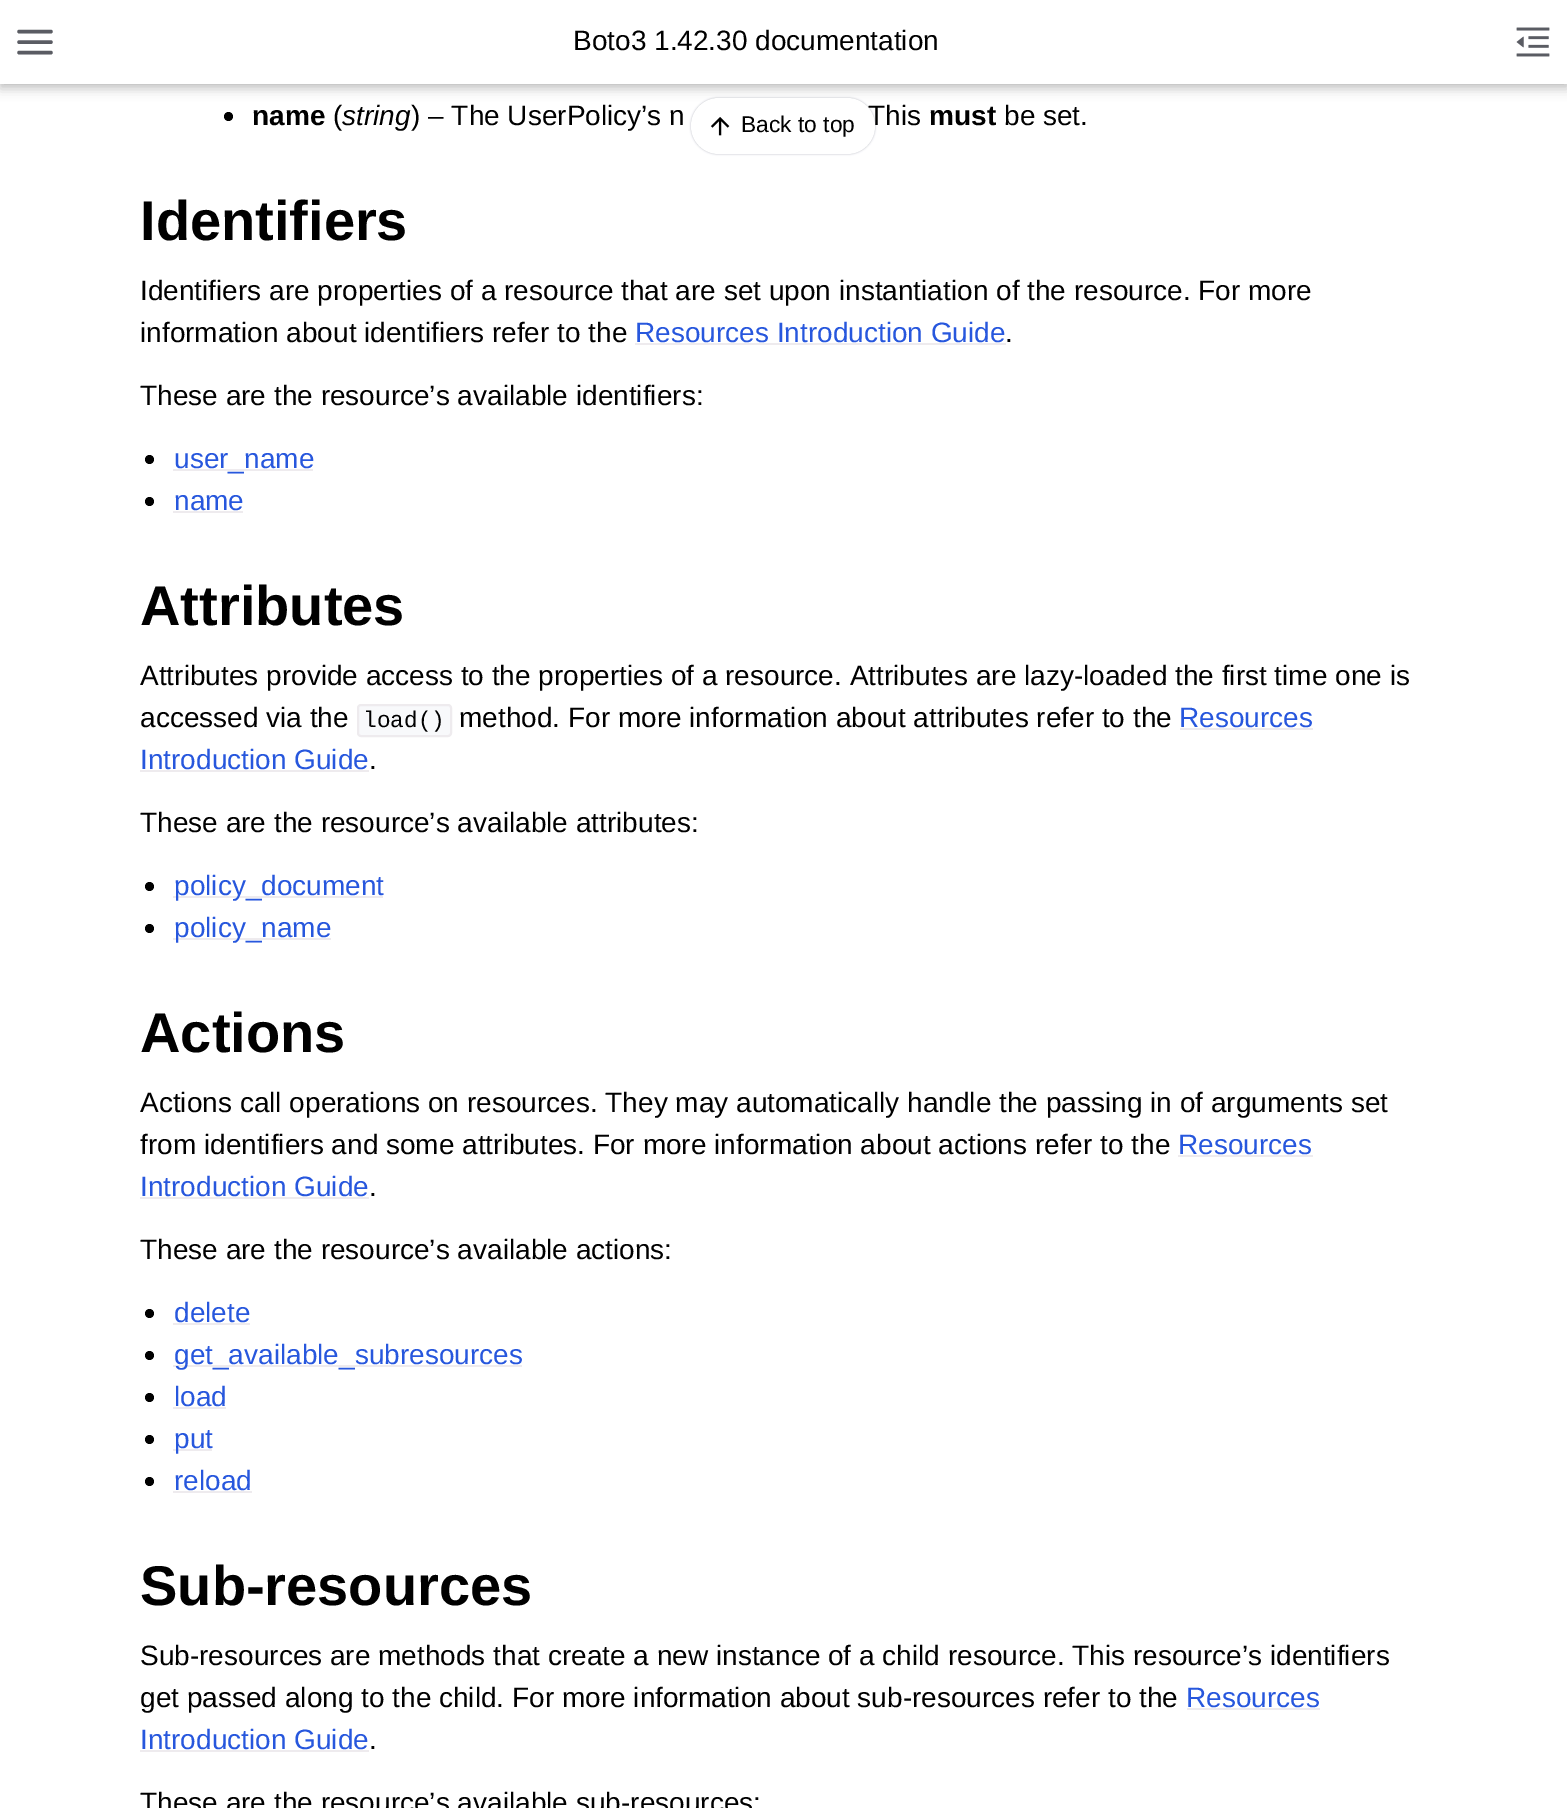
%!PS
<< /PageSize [1567 1808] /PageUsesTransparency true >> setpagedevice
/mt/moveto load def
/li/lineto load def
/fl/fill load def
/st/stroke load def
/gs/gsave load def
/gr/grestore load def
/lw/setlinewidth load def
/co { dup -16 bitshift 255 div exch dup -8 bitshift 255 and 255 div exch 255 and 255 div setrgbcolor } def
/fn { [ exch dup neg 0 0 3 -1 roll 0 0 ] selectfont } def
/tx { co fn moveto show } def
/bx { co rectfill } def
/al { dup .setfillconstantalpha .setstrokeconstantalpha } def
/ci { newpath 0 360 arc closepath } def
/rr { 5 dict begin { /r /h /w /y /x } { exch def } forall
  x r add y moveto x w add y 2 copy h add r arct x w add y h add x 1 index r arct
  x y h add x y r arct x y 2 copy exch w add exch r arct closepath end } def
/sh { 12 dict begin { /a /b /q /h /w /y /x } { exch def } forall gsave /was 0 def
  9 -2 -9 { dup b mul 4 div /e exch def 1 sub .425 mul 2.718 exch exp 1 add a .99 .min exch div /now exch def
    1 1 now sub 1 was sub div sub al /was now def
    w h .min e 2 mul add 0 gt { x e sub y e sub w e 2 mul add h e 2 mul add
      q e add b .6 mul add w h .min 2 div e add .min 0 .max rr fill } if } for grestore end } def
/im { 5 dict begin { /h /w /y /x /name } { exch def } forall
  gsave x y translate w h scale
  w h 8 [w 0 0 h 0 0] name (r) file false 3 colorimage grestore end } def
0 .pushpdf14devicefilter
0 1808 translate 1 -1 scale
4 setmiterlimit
0 0 1567 1808 16#FFFFFF bx
16#000000 co
0 5 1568 84 0 5.5 .2 sh
0 0 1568 84 0 3 .1 sh
0 0 1567 84 16#FFFFFF bx
16#5A5C63 co
3.5 lw
1 setlinecap
1 setlinejoin
19 42 mt 51 42 li 19 31.5 mt 51 31.5 li 19 52.5 mt 51 52.5 li st
(media/1.raw) 1516 27 34 30 im
16#000000 co
228.5 116.5 4.5 ci fl
635 343 371 2 16#EEEBEE bx
16#000000 co
149.5 459.5 4.5 ci fl
173 469 140 2 16#EEEBEE bx
16#000000 co
149.5 501.5 4.5 ci fl
173 511 70 2 16#EEEBEE bx
16#F8F9FB co
358 705 93 31 3 rr gs fl gr
16#EEEBEE co
2 lw
0 setlinecap
0 setlinejoin
st
1180 728 133 2 16#EEEBEE bx
140 770 229 2 16#EEEBEE bx
16#000000 co
149.5 886.5 4.5 ci fl
173 896 210 2 16#EEEBEE bx
16#000000 co
149.5 928.5 4.5 ci fl
173 938 158 2 16#EEEBEE bx
1178 1155 135 2 16#EEEBEE bx
140 1197 229 2 16#EEEBEE bx
16#000000 co
149.5 1313.5 4.5 ci fl
173 1323 77 2 16#EEEBEE bx
16#000000 co
149.5 1355.5 4.5 ci fl
173 1365 349 2 16#EEEBEE bx
16#000000 co
149.5 1397.5 4.5 ci fl
173 1407 53 2 16#EEEBEE bx
16#000000 co
149.5 1439.5 4.5 ci fl
173 1449 39 2 16#EEEBEE bx
16#000000 co
149.5 1481.5 4.5 ci fl
173 1491 79 2 16#EEEBEE bx
1187 1708 133 2 16#EEEBEE bx
140 1750 229 2 16#EEEBEE bx
16#6B7280 co
691 98 184 56 28 1 .5 sh
(Boto3 1.42.30 documentation) 573 50 /LiberationSans-Regular 28 16#000000 tx
(name) 252 125 /LiberationSans-Bold 28 16#000000 tx
(\() 333 125 /LiberationSans-Regular 28 16#000000 tx
(string) 342 125 /LiberationSans-Italic 28 16#000000 tx
(\) – The UserPolicy’s n) 411 125 /LiberationSans-Regular 28 16#000000 tx
(This) 868 125 /LiberationSans-Regular 28 16#000000 tx
(must) 929 125 /LiberationSans-Bold 28 16#000000 tx
(be set.) 1004 125 /LiberationSans-Regular 28 16#000000 tx
(Identifiers) 140 240 /LiberationSans-Bold 56 16#000000 tx
(Identifiers are properties of a resource that are set upon instantiation of the resource. For more) 140 300 /LiberationSans-Regular 28 16#000000 tx
(information about identifiers refer to the) 140 342 /LiberationSans-Regular 28 16#000000 tx
(Resources Introduction Guide) 635 342 /LiberationSans-Regular 28 16#2757DD tx
(.) 1005 342 /LiberationSans-Regular 28 16#000000 tx
(These are the resource’s available identifiers:) 140 405 /LiberationSans-Regular 28 16#000000 tx
(user_name) 174 468 /LiberationSans-Regular 28 16#2757DD tx
(name) 174 510 /LiberationSans-Regular 28 16#2757DD tx
(Attributes) 140 625 /LiberationSans-Bold 56 16#000000 tx
(Attributes provide access to the properties of a resource. Attributes are lazy-loaded the first time one is) 140 685 /LiberationSans-Regular 28 16#000000 tx
(accessed via the) 140 727 /LiberationSans-Regular 28 16#000000 tx
(load\(\)) 363 727 /LiberationMono-Regular 22.75 16#000000 tx
(method. For more information about attributes refer to the) 459 727 /LiberationSans-Regular 28 16#000000 tx
(Resources) 1179 727 /LiberationSans-Regular 28 16#2757DD tx
(Introduction Guide) 140 769 /LiberationSans-Regular 28 16#2757DD tx
(.) 369 769 /LiberationSans-Regular 28 16#000000 tx
(These are the resource’s available attributes:) 140 832 /LiberationSans-Regular 28 16#000000 tx
(policy_document) 174 895 /LiberationSans-Regular 28 16#2757DD tx
(policy_name) 174 937 /LiberationSans-Regular 28 16#2757DD tx
(Actions) 140 1052 /LiberationSans-Bold 56 16#000000 tx
(Actions call operations on resources. They may automatically handle the passing in of arguments set) 140 1112 /LiberationSans-Regular 28 16#000000 tx
(from identifiers and some attributes. For more information about actions refer to the) 140 1154 /LiberationSans-Regular 28 16#000000 tx
(Resources) 1178 1154 /LiberationSans-Regular 28 16#2757DD tx
(Introduction Guide) 140 1196 /LiberationSans-Regular 28 16#2757DD tx
(.) 369 1196 /LiberationSans-Regular 28 16#000000 tx
(These are the resource’s available actions:) 140 1259 /LiberationSans-Regular 28 16#000000 tx
(delete) 174 1322 /LiberationSans-Regular 28 16#2757DD tx
(get_available_subresources) 174 1364 /LiberationSans-Regular 28 16#2757DD tx
(load) 174 1406 /LiberationSans-Regular 28 16#2757DD tx
(put) 174 1448 /LiberationSans-Regular 28 16#2757DD tx
(reload) 174 1490 /LiberationSans-Regular 28 16#2757DD tx
(Sub-resources) 140 1605 /LiberationSans-Bold 56 16#000000 tx
(Sub-resources are methods that create a new instance of a child resource. This resource’s identifiers) 140 1665 /LiberationSans-Regular 28 16#000000 tx
(get passed along to the child. For more information about sub-resources refer to the) 140 1707 /LiberationSans-Regular 28 16#000000 tx
(Resources) 1186 1707 /LiberationSans-Regular 28 16#2757DD tx
(Introduction Guide) 140 1749 /LiberationSans-Regular 28 16#2757DD tx
(.) 369 1749 /LiberationSans-Regular 28 16#000000 tx
(These are the resource’s available sub-resources:) 140 1812 /LiberationSans-Regular 28 16#000000 tx
16#FFFFFF co
691 98 184 56 28 rr fl
(media/2.raw) 710 117 20 19 im
(Back to top) 741 132 /LiberationSans-Regular 22.75 16#000000 tx
.poppdf14devicefilter showpage
